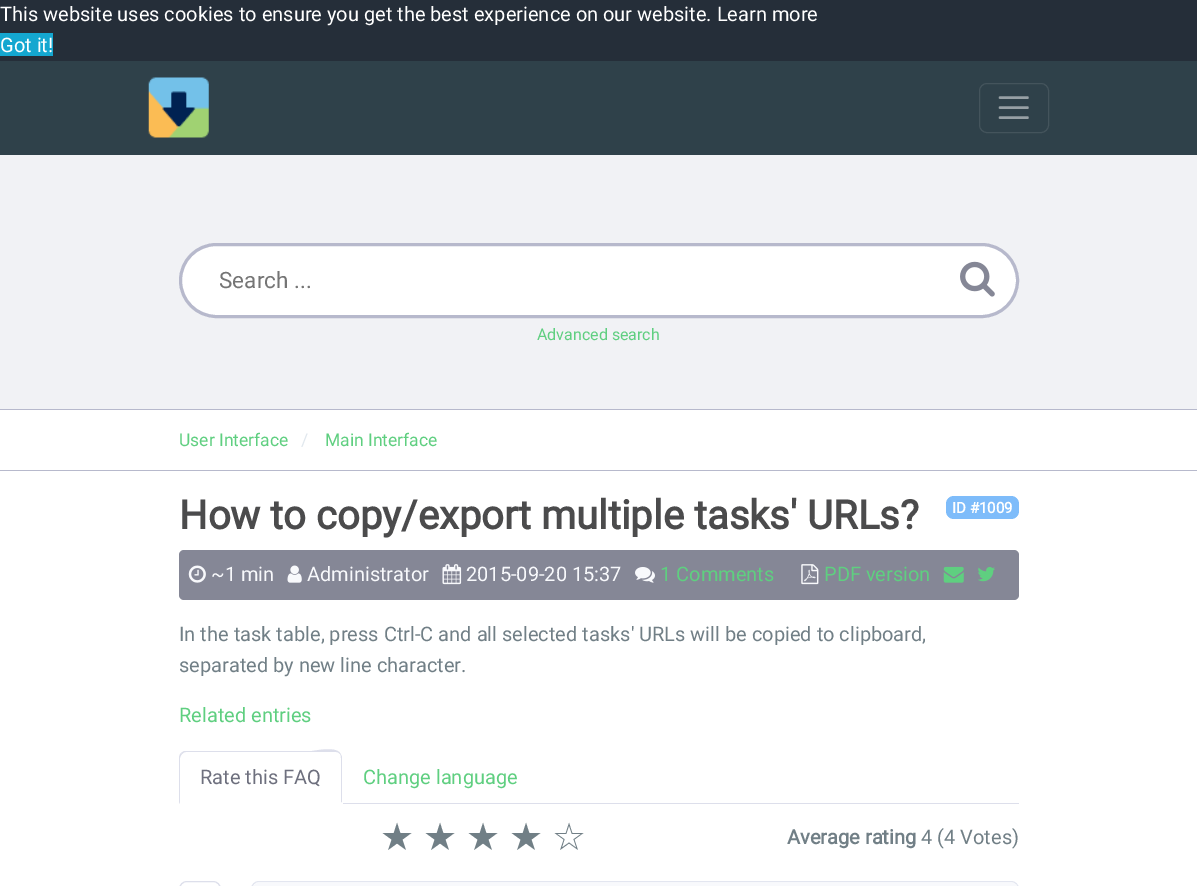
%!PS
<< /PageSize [1197 886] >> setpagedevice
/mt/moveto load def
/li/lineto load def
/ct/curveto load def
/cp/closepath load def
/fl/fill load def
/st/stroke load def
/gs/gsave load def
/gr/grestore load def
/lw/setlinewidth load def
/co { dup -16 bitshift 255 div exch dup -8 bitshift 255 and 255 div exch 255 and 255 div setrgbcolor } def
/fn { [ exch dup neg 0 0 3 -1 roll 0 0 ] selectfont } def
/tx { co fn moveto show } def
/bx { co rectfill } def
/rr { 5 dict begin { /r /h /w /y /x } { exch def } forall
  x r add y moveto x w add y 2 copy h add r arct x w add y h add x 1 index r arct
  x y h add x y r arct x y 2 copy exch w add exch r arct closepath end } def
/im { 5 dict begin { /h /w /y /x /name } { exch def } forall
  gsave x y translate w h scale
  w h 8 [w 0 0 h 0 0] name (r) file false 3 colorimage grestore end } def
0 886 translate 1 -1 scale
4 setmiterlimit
0 0 1197 886 16#FFFFFF bx
0 0 1197 61 16#252E39 bx
0 33 53 23 16#14A7D0 bx
0 61 1197 94 16#2F414A bx
(media/1.raw) 148 77 61 61 im
16#44545C co
979.5 83.5 69 49 7.5 rr st
16#97A0A5 co
2.5 lw
1 setlinecap
1000 97.5 mt 1027.5 97.5 li 1000 107.5 mt 1027.5 107.5 li 1000 117.5 mt 1027.5 117.5 li st
0 155 1197 254 16#F1F2F5 bx
0 409 1197 1 16#B7B9CC bx
16#FFFFFF co
180.5 244.5 837 72 36 rr gs fl gr
16#B7B9CC co
3 lw
0 setlinecap
st
(media/2.raw) 960 261 35 36 im
0 470 1197 1 16#B7B9CC bx
16#7EBCFA co
946 496 73 23 8 rr fl
16#858796 co
179 550 840 50 5 rr fl
(media/3.raw) 188 565 18 18 im
(media/4.raw) 287 565 15 18 im
(media/5.raw) 442 564 20 21 im
(media/6.raw) 635 567 20 16 im
(media/7.raw) 801 564 18 21 im
(media/8.raw) 943 566 21 17 im
(media/9.raw) 978 567 17 15 im
343 803 676 1 16#DDDFEB bx
186 752 mt 184 752 183 753 182 754 ct 181 753 li 184 751 li 312 751 li 314 751 335 746 340 753 ct 340 754 li 339 753 338 752 336 752 ct cp fl
340 753 mt 341 755 342 756 342 758 ct 342 803 li 341 802 li 341 758 li 341 757 341 755 340 754 ct cp fl
16#FFFFFF co
179 804 mt 180 802 li 341 802 li 342 803 li 342 804 li cp fl
16#DDDFEB co
179 804 mt 179 758 li 179 756 180 754 181 753 ct 182 754 li 181 755 180 757 180 758 ct 180 802 li cp fl
1 lw
179.5 881.5 41 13 7.5 rr st
16#E3E6F0 co
251.5 881.5 767 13 7.5 rr st
16#F8F9FC co
259 883 mt 1012 883 li 1015.5 883 1018 885.5 1018 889 ct 1018 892 li 253 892 li 253 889 li 253 885.5 255.5 883 259 883 ct cp fl
(This website uses cookies to ensure you get the best experience on our website. Learn more) 0 21 /Roboto-Regular 20 16#FFFFFF tx
(Got it!) 0 52 /Roboto-Regular 20 16#FFFFFF tx
(Search ...) 219 288 /Roboto-Regular 22.5 16#757575 tx
(Advanced search) 537 340 /Roboto-Regular 16 16#5FCF80 tx
(User Interface) 179 446 /Roboto-Regular 17.5 16#5FCF80 tx
(/) 301 446 /Roboto-Regular 17.5 16#E1E8EE tx
(Main Interface) 325 446 /Roboto-Regular 17.5 16#5FCF80 tx
(How to copy/export multiple tasks' URLs?) 179 529 /Roboto-Bold 40 16#4B4B4C tx
(ID #1009) 952 513 /Roboto-Bold 15 16#FFFFFF tx
(~1 min) 211 581 /Roboto-Regular 20 16#F8F9FC tx
(Administrator) 307 581 /Roboto-Regular 20 16#F8F9FC tx
(2015-09-20 15:37) 466 581 /Roboto-Regular 20 16#F8F9FC tx
(1 Comments) 660 581 /Roboto-Regular 20 16#5FCF80 tx
(PDF version) 824 581 /Roboto-Regular 20 16#5FCF80 tx
(In the task table, press Ctrl-C and all selected tasks' URLs will be copied to clipboard,) 179 641 /Roboto-Regular 20 16#717F86 tx
(separated by new line character.) 179 672 /Roboto-Regular 20 16#717F86 tx
(Related entries) 179 722 /Roboto-Regular 20 16#5FCF80 tx
(Rate this FAQ) 200 784 /Roboto-Regular 20 16#6E707E tx
(Change language) 363 784 /Roboto-Regular 20 16#5FCF80 tx
(★) 380 850 /DejaVuSans-Regular 38 16#717F86 tx
(★) 423 850 /DejaVuSans-Regular 38 16#717F86 tx
(★) 466 850 /DejaVuSans-Regular 38 16#717F86 tx
(★) 509 850 /DejaVuSans-Regular 38 16#717F86 tx
(☆) 552 850 /DejaVuSans-Regular 38 16#717F86 tx
(Average rating) 787 844 /Roboto-Bold 20 16#717F86 tx
(4 \(4 Votes\)) 921 844 /Roboto-Regular 20 16#717F86 tx
showpage
